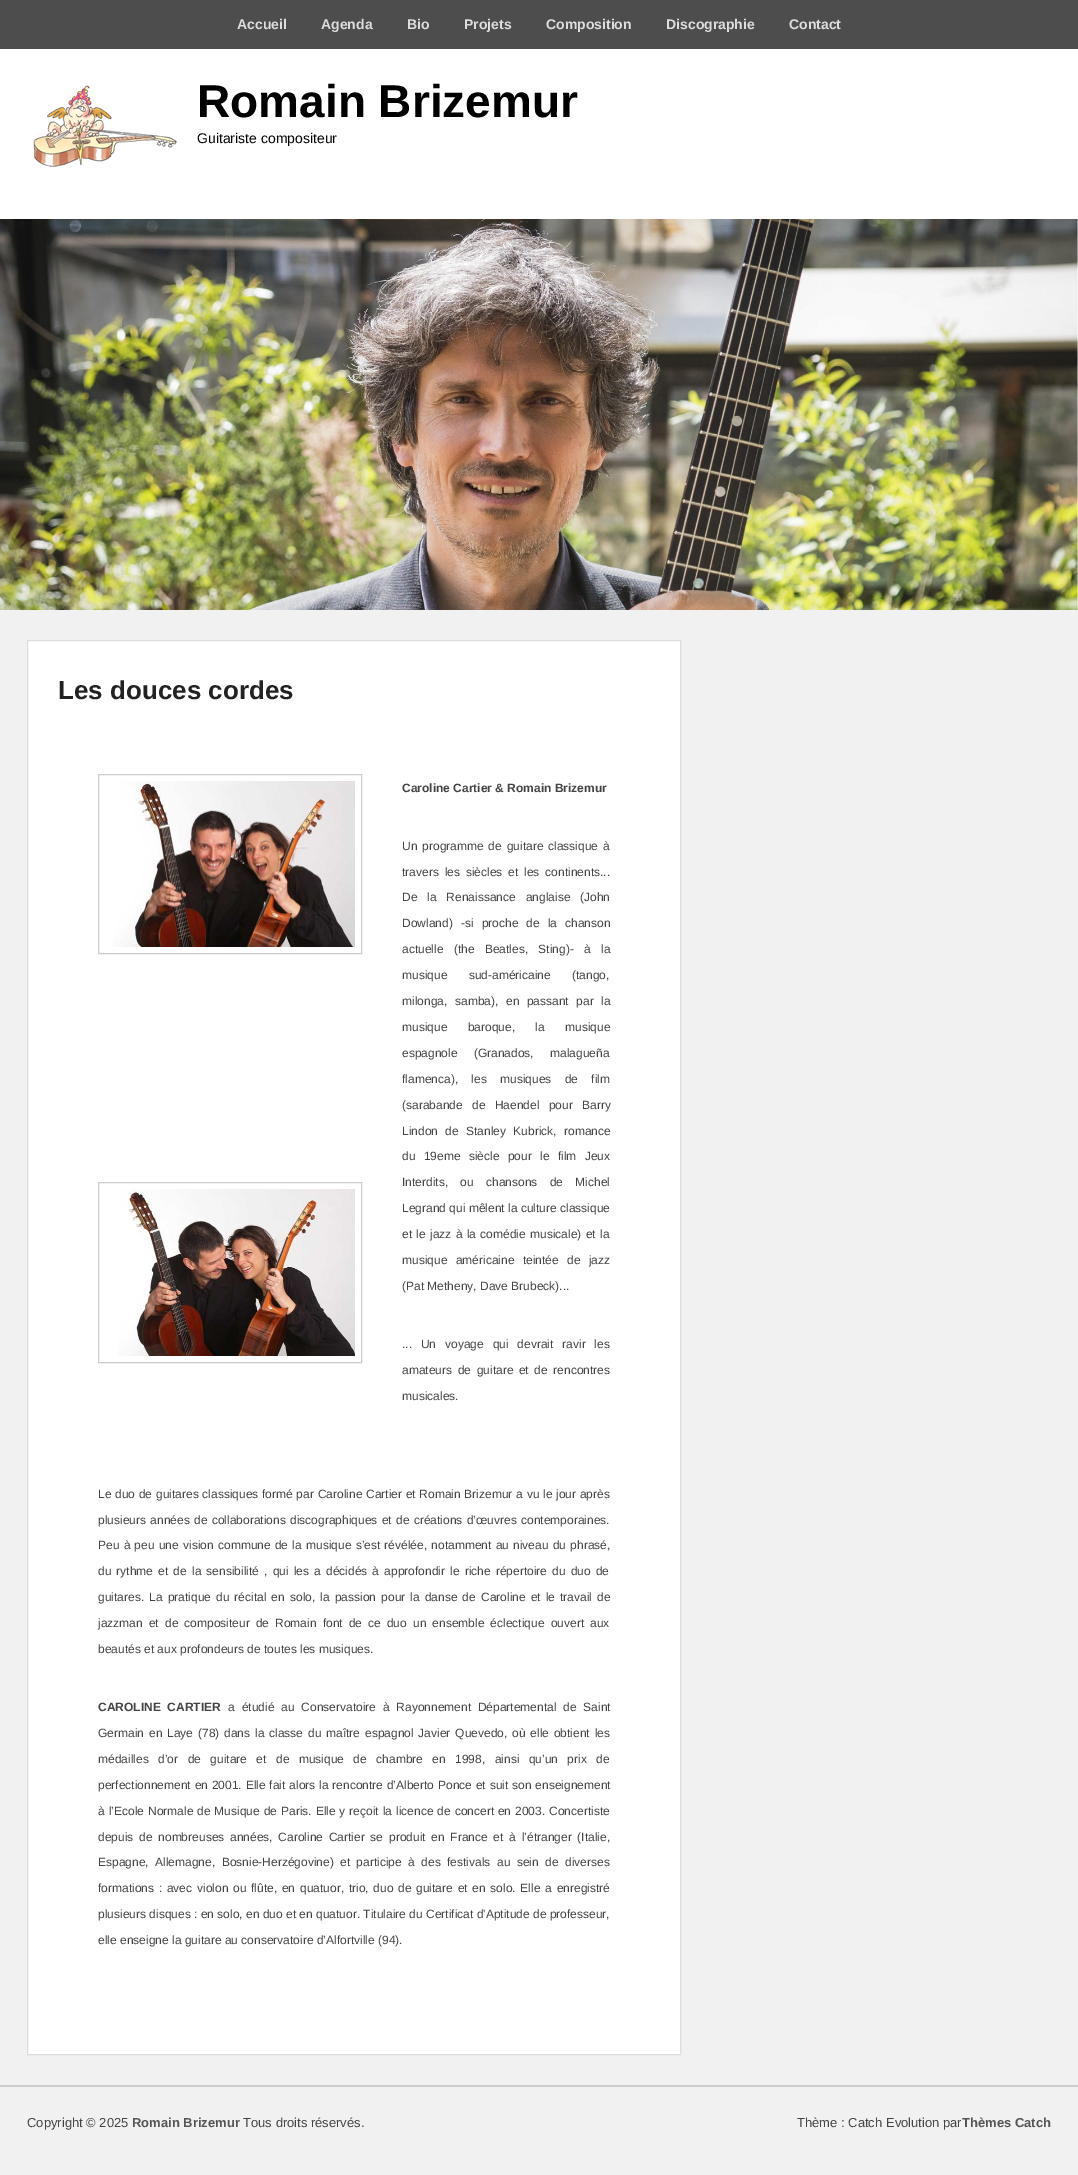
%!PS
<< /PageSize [1078 2175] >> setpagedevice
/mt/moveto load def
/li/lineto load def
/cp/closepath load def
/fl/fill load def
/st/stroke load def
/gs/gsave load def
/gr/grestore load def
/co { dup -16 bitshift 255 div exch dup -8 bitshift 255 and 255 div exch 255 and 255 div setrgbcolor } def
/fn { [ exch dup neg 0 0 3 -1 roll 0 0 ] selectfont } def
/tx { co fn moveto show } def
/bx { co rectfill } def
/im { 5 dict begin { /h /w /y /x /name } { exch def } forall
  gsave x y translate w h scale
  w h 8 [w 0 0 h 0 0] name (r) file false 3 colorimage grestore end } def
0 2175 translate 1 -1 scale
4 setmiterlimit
0 0 1078 2175 16#F1F1F1 bx
0 0 1078 49 16#4D4D4D bx
0 49 1078 169 16#FFFFFF bx
(media/1.raw) 33 85 144 82 im
(media/2.raw) 0 218 1078 392 im
27.5 640.5 mt 680.5 640.5 li 680.5 2054.5 li 27.5 2054.5 li cp gs fl gr
16#DDDDDD co
st
16#CCCCCC co
98.5 774.5 263 179 rectstroke
(media/3.raw) 113 781 242 166 im
98.5 1182.5 263 180 rectstroke
(media/4.raw) 117 1189 238 167 im
0 2085 1078 2 16#CCCCCC bx
(Accueil) 237 29 /LiberationSans-Bold 14 16#DDDDDD tx
(Agenda) 321 29 /LiberationSans-Bold 14 16#DDDDDD tx
(Bio) 407 29 /LiberationSans-Bold 14 16#DDDDDD tx
(Projets) 464 29 /LiberationSans-Bold 14 16#DDDDDD tx
(Composition) 546 29 /LiberationSans-Bold 14 16#DDDDDD tx
(Discographie) 666 29 /LiberationSans-Bold 14 16#DDDDDD tx
(Contact) 789 29 /LiberationSans-Bold 14 16#DDDDDD tx
(Romain Brizemur) 197 117 /LiberationSans-Bold 46 16#000000 tx
(Guitariste compositeur) 197 143 /LiberationSans-Regular 14 16#000000 tx
(Les douces cordes) 58 699 /LiberationSans-Bold 26 16#222222 tx
(Caroline Cartier & Romain Brizemur) 402 792 /LiberationSans-Bold 12 16#444444 tx
/LiberationSans-Regular 12 fn
402 850 mt 1.5 0 32 (Un programme de guitare classique à) widthshow
402 876 mt 2.5 0 32 (travers les siècles et les continents...) widthshow
402 901 mt 6.5 0 32 (De la Renaissance anglaise \(John) widthshow
402 927 mt 4.75 0 32 (Dowland\) -si proche de la chanson) widthshow
402 953 mt 7 0 32 (actuelle \(the Beatles, Sting\)- à la) widthshow
402 979 mt 18 0 32 (musique sud-américaine \(tango,) widthshow
402 1005 mt 4.25 0 32 (milonga, samba\), en passant par la) widthshow
402 1031 mt 17 0 32 (musique baroque, la musique) widthshow
402 1057 mt 13 0 32 (espagnole \(Granados, malagueña) widthshow
402 1083 mt 10 0 32 (flamenca\), les musiques de film) widthshow
402 1109 mt 6 0 32 (\(sarabande de Haendel pour Barry) widthshow
402 1135 mt 4 0 32 (Lindon de Stanley Kubrick, romance) widthshow
402 1160 mt 5 0 32 (du 19eme siècle pour le film Jeux) widthshow
402 1186 mt 9 0 32 (Interdits, ou chansons de Michel) widthshow
(Legrand qui mêlent la culture classique) 402 1212 /LiberationSans-Regular 12 16#444444 tx
402 1238 mt 1 0 32 (et le jazz à la comédie musicale\) et la) widthshow
402 1264 mt 5 0 32 (musique américaine teintée de jazz) widthshow
(\(Pat Metheny, Dave Brubeck\)...) 402 1290 /LiberationSans-Regular 12 16#444444 tx
402 1348 mt 5.5 0 32 (... Un voyage qui devrait ravir les) widthshow
402 1374 mt 2.25 0 32 (amateurs de guitare et de rencontres) widthshow
(musicales.) 402 1400 /LiberationSans-Regular 12 16#444444 tx
98 1498 mt .4 0 32 (Le duo de guitares classiques formé par Caroline Cartier et Romain Brizemur a vu le jour après) widthshow
98 1524 mt 1 0 32 (plusieurs années de collaborations discographiques et de créations d’œuvres contemporaines.) widthshow
98 1549 mt .9 0 32 (Peu à peu une vision commune de la musique s’est révélée, notamment au niveau du phrasé,) widthshow
98 1575 mt 1.8 0 32 (du rythme et de la sensibilité , qui les a décidés à approfondir le riche répertoire du duo de) widthshow
98 1601 mt 1.75 0 32 (guitares. La pratique du récital en solo, la passion pour la danse de Caroline et le travail de) widthshow
98 1627 mt 2.75 0 32 (jazzman et de compositeur de Romain font de ce duo un ensemble éclectique ouvert aux) widthshow
(beautés et aux profondeurs de toutes les musiques.) 98 1653 /LiberationSans-Regular 12 16#444444 tx
/LiberationSans-Bold 12 fn
98 1711 mt 3.5 0 32 (CAROLINE CARTIER) widthshow
/LiberationSans-Regular 12 fn
228 1711 mt 3.5 0 32 (a étudié au Conservatoire à Rayonnement Départemental de Saint) widthshow
98 1737 mt 1.5 0 32 (Germain en Laye \(78\) dans la classe du maître espagnol Javier Quevedo, où elle obtient les) widthshow
98 1763 mt 6.1 0 32 (médailles d’or de guitare et de musique de chambre en 1998, ainsi qu’un prix de) widthshow
98 1789 mt .5 0 32 (perfectionnement en 2001. Elle fait alors la rencontre d’Alberto Ponce et suit son enseignement) widthshow
98 1815 mt .6 0 32 (à l’Ecole Normale de Musique de Paris. Elle y reçoit la licence de concert en 2003. Concertiste) widthshow
98 1841 mt 2.4 0 32 (depuis de nombreuses années, Caroline Cartier se produit en France et à l’étranger \(Italie,) widthshow
98 1866 mt 3.1 0 32 (Espagne, Allemagne, Bosnie-Herzégovine\) et participe à des festivals au sein de diverses) widthshow
98 1892 mt 1.4 0 32 (formations : avec violon ou flûte, en quatuor, trio, duo de guitare et en solo. Elle a enregistré) widthshow
(plusieurs disques : en solo, en duo et en quatuor. Titulaire du Certificat d'Aptitude de professeur,) 98 1918 /LiberationSans-Regular 12 16#444444 tx
(elle enseigne la guitare au conservatoire d’Alfortville \(94\).) 98 1944 /LiberationSans-Regular 12 16#444444 tx
(Copyright © 2025) 27 2127 /LiberationSans-Regular 13 16#444444 tx
(Romain Brizemur) 132 2127 /LiberationSans-Bold 13 16#555555 tx
(Tous droits réservés.) 243 2127 /LiberationSans-Regular 13 16#444444 tx
(Thème : Catch Evolution par) 797 2127 /LiberationSans-Regular 13 16#444444 tx
(Thèmes Catch) 962 2127 /LiberationSans-Bold 13 16#555555 tx
showpage
